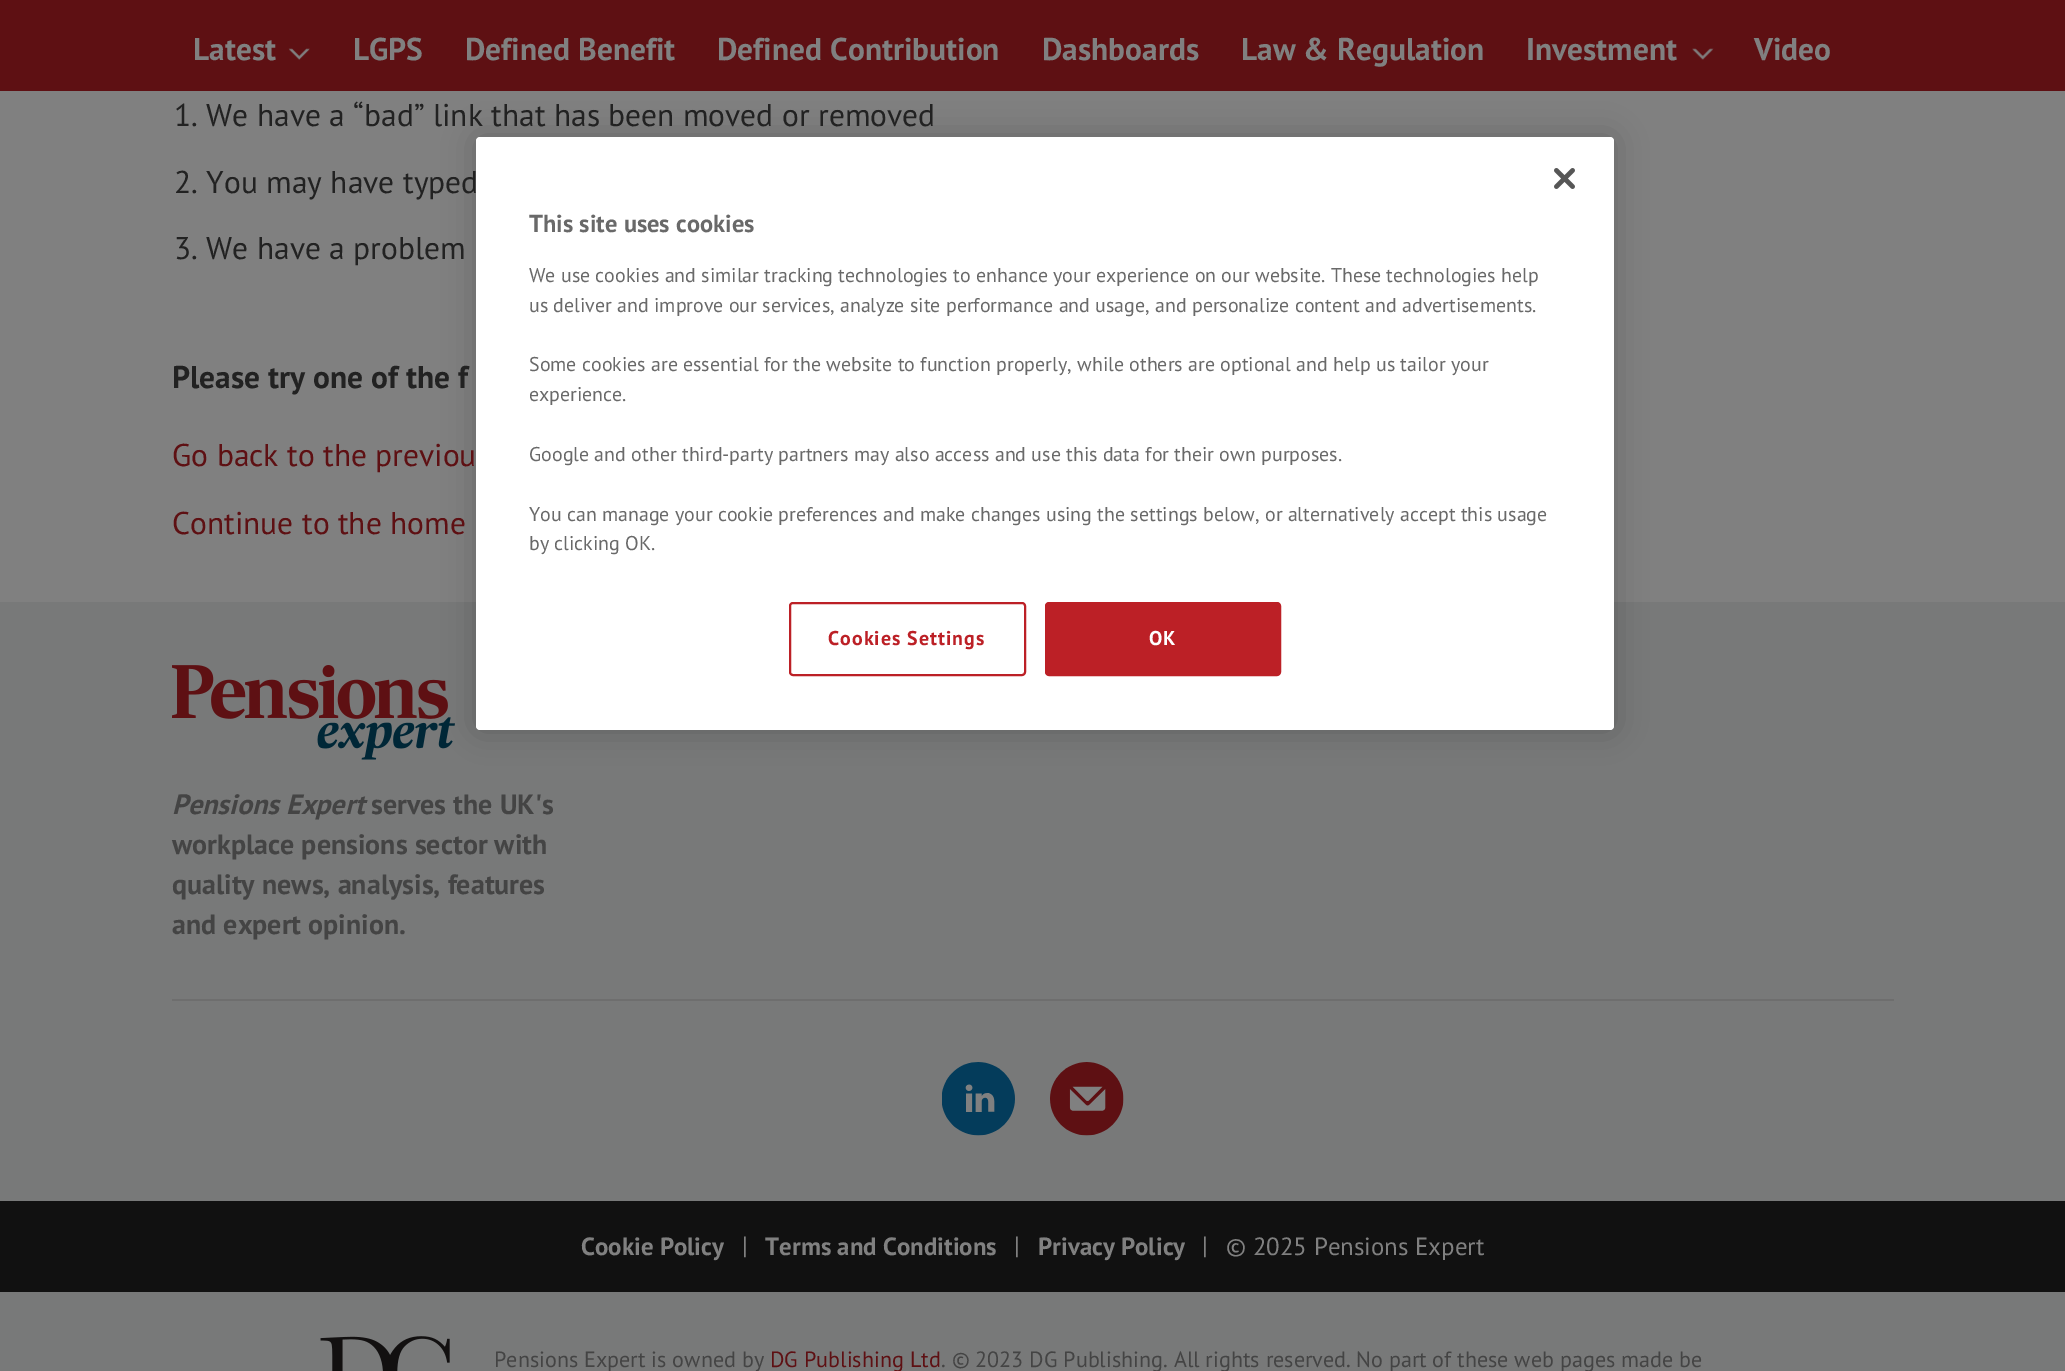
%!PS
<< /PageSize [2065 1371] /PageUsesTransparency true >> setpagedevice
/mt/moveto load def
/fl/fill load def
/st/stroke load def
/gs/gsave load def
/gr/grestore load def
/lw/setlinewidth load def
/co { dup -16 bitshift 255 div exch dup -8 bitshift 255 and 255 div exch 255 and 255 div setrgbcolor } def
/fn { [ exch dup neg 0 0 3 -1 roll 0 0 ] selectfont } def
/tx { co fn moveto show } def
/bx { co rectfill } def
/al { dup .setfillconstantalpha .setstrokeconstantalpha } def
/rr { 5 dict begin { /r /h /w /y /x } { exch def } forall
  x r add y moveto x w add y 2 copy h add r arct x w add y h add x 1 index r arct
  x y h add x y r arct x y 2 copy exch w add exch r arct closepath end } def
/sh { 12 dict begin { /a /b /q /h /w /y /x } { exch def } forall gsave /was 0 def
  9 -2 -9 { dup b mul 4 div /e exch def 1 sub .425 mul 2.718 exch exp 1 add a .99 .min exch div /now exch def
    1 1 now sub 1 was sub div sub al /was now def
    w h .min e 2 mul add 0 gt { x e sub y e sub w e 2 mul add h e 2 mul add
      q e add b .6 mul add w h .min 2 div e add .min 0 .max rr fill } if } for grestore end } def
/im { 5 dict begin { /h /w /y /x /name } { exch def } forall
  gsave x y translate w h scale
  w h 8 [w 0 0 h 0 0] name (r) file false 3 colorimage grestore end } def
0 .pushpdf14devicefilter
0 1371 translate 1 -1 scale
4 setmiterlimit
0 0 2065 1371 16#808080 bx
0 0 2065 91 16#5E1013 bx
(media/1.raw) 288 48 22 12 im
(media/2.raw) 1692 48 22 12 im
0 602 2065 769 16#787979 bx
(media/3.raw) 172 665 283 95 im
172 999 1722 2 16#6E6E6E bx
(media/4.raw) 942 1062 73 74 im
(media/5.raw) 1050 1062 74 74 im
0 1201 2065 91 16#111111 bx
(media/6.raw) 320 1336 130 35 im
16#000000 co
476 137 1138 593 4 16 .2 sh
(Latest) 193 60 /PTSans-Bold 31.5 16#808080 tx
(LGPS) 353 60 /PTSans-Bold 31.5 16#808080 tx
(Defined Benefit) 465 60 /PTSans-Bold 31.5 16#808080 tx
(Defined Contribution) 717 60 /PTSans-Bold 31.5 16#808080 tx
(Dashboards) 1042 60 /PTSans-Bold 31.5 16#808080 tx
(Law & Regulation) 1241 60 /PTSans-Bold 31.5 16#808080 tx
(Investment) 1526 60 /PTSans-Bold 31.5 16#808080 tx
(Video) 1754 60 /PTSans-Bold 31.5 16#808080 tx
(1. We have a “bad” link that has been moved or removed) 174 126 /PTSans-Regular 31.5 16#222222 tx
(2. You may have typed) 174 193 /PTSans-Regular 31.5 16#222222 tx
(3. We have a problem) 174 259 /PTSans-Regular 31.5 16#222222 tx
(Please try one of the f) 172 388 /PTSans-Bold 31.5 16#222222 tx
(Go back to the previou) 172 466 /PTSans-Regular 31.5 16#5E1013 tx
(Continue to the home) 172 534 /PTSans-Regular 31.5 16#5E1013 tx
(Pensions Expert) 172 814 /PTSans-BoldItalic 28 16#444444 tx
(serves the UK's) 371 814 /PTSans-Bold 28 16#444444 tx
(workplace pensions sector with) 172 854 /PTSans-Bold 28 16#444444 tx
(quality news, analysis, features) 172 894 /PTSans-Bold 28 16#444444 tx
(and expert opinion.) 172 934 /PTSans-Bold 28 16#444444 tx
(Cookie Policy) 581 1255 /PTSans-Bold 24.9 16#808080 tx
(|) 742 1254 /PTSans-Regular 24.9 16#808080 tx
(Terms and Conditions) 765 1255 /PTSans-Bold 24.9 16#808080 tx
(|) 1014 1254 /PTSans-Regular 24.9 16#808080 tx
(Privacy Policy) 1038 1255 /PTSans-Bold 24.9 16#808080 tx
(|) 1202 1254 /PTSans-Regular 24.9 16#808080 tx
(© 2025 Pensions Expert) 1226 1255 /PTSans-Regular 24.9 16#808080 tx
(Pensions Expert is owned by) 494 1367 /PTSans-Regular 22.1 16#444444 tx
(DG Publishing Ltd) 770 1367 /PTSans-Regular 22.1 16#5E1013 tx
(. © 2023 DG Publishing. All rights reserved.) 941 1367 /PTSans-Regular 22.1 16#444444 tx
(No part of these web pages made be) 1356 1367 /PTSans-Regular 22.1 16#444444 tx
16#FFFFFF co
476 137 1138 593 4 rr fl
(media/7.raw) 1554 168 21 21 im
(This site uses cookies) 529 232 /PTSans-Bold 24.5 16#696969 tx
(We use cookies and similar tracking technologies to enhance your experience on our website. These technologies help) 529 282 /PTSans-Regular 19.92 16#696969 tx
(us deliver and improve our services, analyze site performance and usage, and personalize content and advertisements.) 529 312 /PTSans-Regular 19.92 16#696969 tx
(Some cookies are essential for the website to function properly, while others are optional and help us tailor your) 529 371 /PTSans-Regular 19.92 16#696969 tx
(experience.) 529 401 /PTSans-Regular 19.92 16#696969 tx
(Google and other third-party partners may also access and use this data for their own purposes.) 529 461 /PTSans-Regular 19.92 16#696969 tx
(You can manage your cookie preferences and make changes using the settings below, or alternatively accept this usage) 529 521 /PTSans-Regular 19.92 16#696969 tx
(by clicking OK.) 529 550 /PTSans-Regular 19.92 16#696969 tx
16#BC2026 co
2 lw
790 603 235 72 3 rr st
/PTSans-Bold 19.92 fn
828 645 mt 1 0 (Cookies Settings) ashow
1046 603 234 72 3 rr gs fl gr
st
16#FFFFFF co
1149 645 mt 1 0 (OK) ashow
.poppdf14devicefilter showpage
